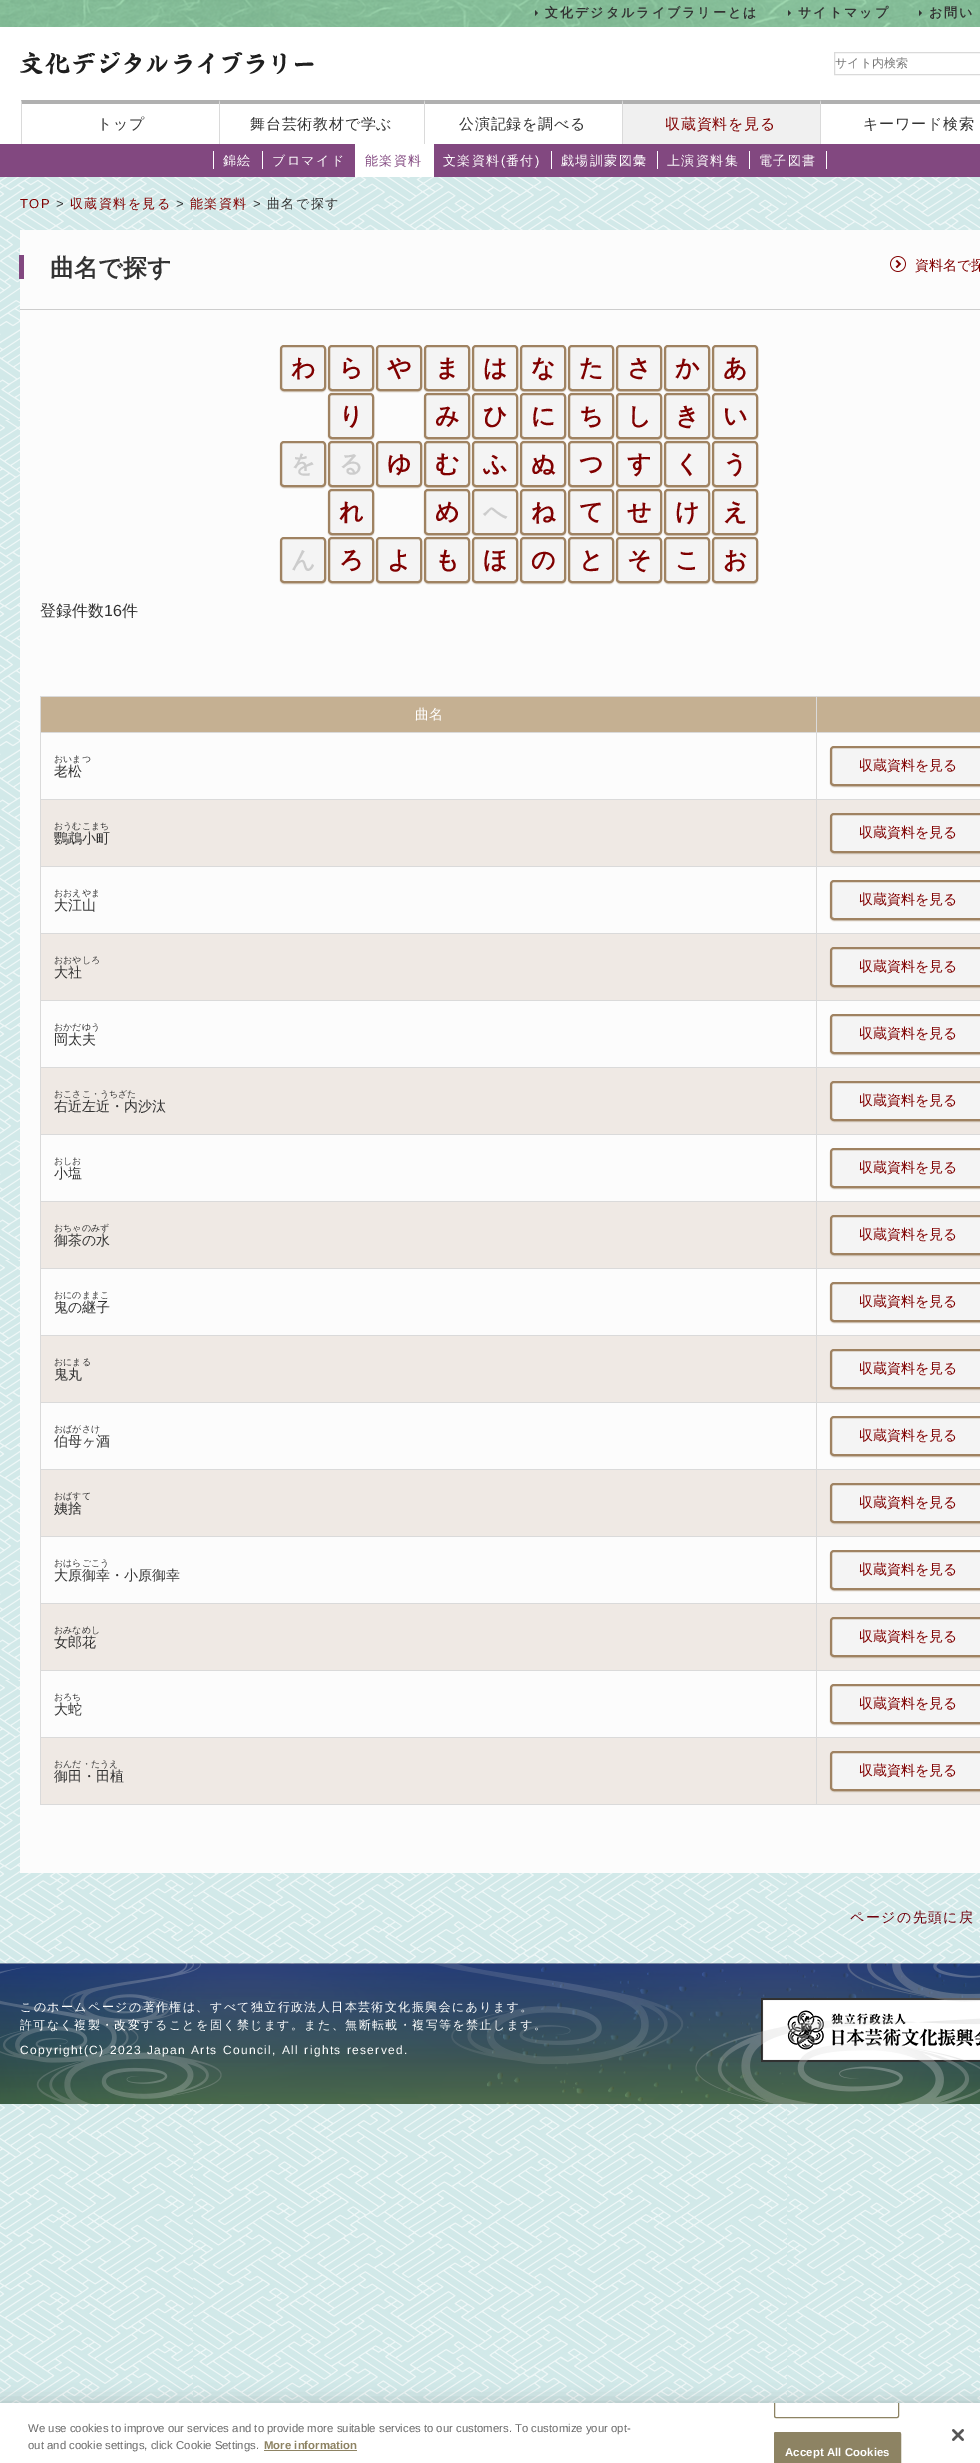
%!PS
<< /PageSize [980 2463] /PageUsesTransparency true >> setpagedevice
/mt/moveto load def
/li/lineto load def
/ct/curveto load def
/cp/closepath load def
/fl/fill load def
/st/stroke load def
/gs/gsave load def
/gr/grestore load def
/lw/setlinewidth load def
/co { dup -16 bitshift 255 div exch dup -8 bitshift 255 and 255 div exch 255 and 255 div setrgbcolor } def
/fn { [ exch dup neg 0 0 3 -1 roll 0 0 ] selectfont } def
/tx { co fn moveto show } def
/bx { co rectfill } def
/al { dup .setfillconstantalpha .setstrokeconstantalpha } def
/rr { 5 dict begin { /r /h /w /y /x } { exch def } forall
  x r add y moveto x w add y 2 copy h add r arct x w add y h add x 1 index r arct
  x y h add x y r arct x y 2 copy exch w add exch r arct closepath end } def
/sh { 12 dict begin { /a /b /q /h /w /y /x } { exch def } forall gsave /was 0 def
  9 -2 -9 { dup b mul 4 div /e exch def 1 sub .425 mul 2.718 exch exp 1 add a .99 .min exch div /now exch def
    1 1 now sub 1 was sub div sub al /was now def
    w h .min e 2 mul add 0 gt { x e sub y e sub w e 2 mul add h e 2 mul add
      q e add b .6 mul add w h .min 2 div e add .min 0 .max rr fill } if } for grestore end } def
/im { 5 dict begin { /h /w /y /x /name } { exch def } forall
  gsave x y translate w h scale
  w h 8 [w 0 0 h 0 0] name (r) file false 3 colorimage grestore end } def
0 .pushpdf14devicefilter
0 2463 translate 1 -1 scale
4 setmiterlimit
0 0 980 2463 16#FFFFFF bx
(media/1.raw) 0 177 980 2226 im
(media/2.raw) 0 0 980 27 im
16#333333 co
535 16 mt 535 10 li 538 13 li cp fl
788 16 mt 788 10 li 791 13 li cp fl
919 16 mt 919 10 li 922 13 li cp fl
(media/3.raw) 20 52 294 23 im
16#DADADA co
834.5 52.5 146 22 rectstroke
16#B0B0B0 co
21 100 mt 219 100 li 219 104 li 22 104 li cp fl
16#DADADA co
21 144 mt 21 100 li 22 104 li 22 144 li cp fl
16#B0B0B0 co
219 100 mt 424 100 li 424 104 li 220 104 li cp fl
16#DADADA co
219 144 mt 219 100 li 220 104 li 220 144 li cp fl
16#B0B0B0 co
424 100 mt 622 100 li 622 104 li 425 104 li cp fl
16#DADADA co
424 144 mt 424 100 li 425 104 li 425 144 li cp fl
16#B0B0B0 co
622 100 mt 820 100 li 820 104 li 623 104 li cp fl
16#DADADA co
622 144 mt 622 100 li 623 104 li 623 144 li cp fl
623 104 197 40 16#F0F0F0 bx
16#B0B0B0 co
820 100 mt 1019 100 li 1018 104 li 821 104 li cp fl
16#DADADA co
820 144 mt 820 100 li 821 104 li 821 144 li cp fl
520 144 460 33 16#824880 bx
0 144 520 33 16#824880 bx
213 151 1 18 16#FFFFFF bx
262 151 1 18 16#FFFFFF bx
355 144 79 33 16#FFFFFF bx
551 151 1 18 16#FFFFFF bx
657 151 1 18 16#FFFFFF bx
749 151 1 18 16#FFFFFF bx
826 151 1 18 16#FFFFFF bx
20 230 960 1643 16#FCFCFC bx
20 309 960 1 16#CDCDCD bx
19 255 5 24 16#824880 bx
(media/4.raw) 890 256 16 16 im
16#D2C9BC co
712 346 46 46 4 .5 1 sh
16#F4F4F4 co
713 346 44 44 3 rr gs fl gr
16#9F8261 co
2 lw
st
16#D2C9BC co
712 394 46 46 4 .5 1 sh
16#F4F4F4 co
713 394 44 44 3 rr gs fl gr
16#9F8261 co
st
16#D2C9BC co
664 346 46 46 4 .5 1 sh
16#F4F4F4 co
665 346 44 44 3 rr gs fl gr
16#9F8261 co
st
16#D2C9BC co
712 442 46 46 4 .5 1 sh
16#F4F4F4 co
713 442 44 44 3 rr gs fl gr
16#9F8261 co
st
16#D2C9BC co
664 394 46 46 4 .5 1 sh
16#F4F4F4 co
665 394 44 44 3 rr gs fl gr
16#9F8261 co
st
16#D2C9BC co
616 346 46 46 4 .5 1 sh
16#F4F4F4 co
617 346 44 44 3 rr gs fl gr
16#9F8261 co
st
16#D2C9BC co
712 490 46 46 4 .5 1 sh
16#F4F4F4 co
713 490 44 44 3 rr gs fl gr
16#9F8261 co
st
16#D2C9BC co
664 442 46 46 4 .5 1 sh
16#F4F4F4 co
665 442 44 44 3 rr gs fl gr
16#9F8261 co
st
16#D2C9BC co
616 394 46 46 4 .5 1 sh
16#F4F4F4 co
617 394 44 44 3 rr gs fl gr
16#9F8261 co
st
16#D2C9BC co
568 346 46 46 4 .5 1 sh
16#F4F4F4 co
569 346 44 44 3 rr gs fl gr
16#9F8261 co
st
16#D2C9BC co
712 538 46 46 4 .5 1 sh
16#F4F4F4 co
713 538 44 44 3 rr gs fl gr
16#9F8261 co
st
16#D2C9BC co
664 490 46 46 4 .5 1 sh
16#F4F4F4 co
665 490 44 44 3 rr gs fl gr
16#9F8261 co
st
16#D2C9BC co
616 442 46 46 4 .5 1 sh
16#F4F4F4 co
617 442 44 44 3 rr gs fl gr
16#9F8261 co
st
16#D2C9BC co
568 394 46 46 4 .5 1 sh
16#F4F4F4 co
569 394 44 44 3 rr gs fl gr
16#9F8261 co
st
16#D2C9BC co
520 346 46 46 4 .5 1 sh
16#F4F4F4 co
521 346 44 44 3 rr gs fl gr
16#9F8261 co
st
16#D2C9BC co
664 538 46 46 4 .5 1 sh
16#F4F4F4 co
665 538 44 44 3 rr gs fl gr
16#9F8261 co
st
16#D2C9BC co
616 490 46 46 4 .5 1 sh
16#F4F4F4 co
617 490 44 44 3 rr gs fl gr
16#9F8261 co
st
16#D2C9BC co
568 442 46 46 4 .5 1 sh
16#F4F4F4 co
569 442 44 44 3 rr gs fl gr
16#9F8261 co
st
16#D2C9BC co
520 394 46 46 4 .5 1 sh
16#F4F4F4 co
521 394 44 44 3 rr gs fl gr
16#9F8261 co
st
16#D2C9BC co
472 346 46 46 4 .5 1 sh
16#F4F4F4 co
473 346 44 44 3 rr gs fl gr
16#9F8261 co
st
16#D2C9BC co
616 538 46 46 4 .5 1 sh
16#F4F4F4 co
617 538 44 44 3 rr gs fl gr
16#9F8261 co
st
16#D2C9BC co
568 490 46 46 4 .5 1 sh
16#F4F4F4 co
569 490 44 44 3 rr gs fl gr
16#9F8261 co
st
16#D2C9BC co
520 442 46 46 4 .5 1 sh
16#F4F4F4 co
521 442 44 44 3 rr gs fl gr
16#9F8261 co
st
16#D2C9BC co
472 394 46 46 4 .5 1 sh
16#F4F4F4 co
473 394 44 44 3 rr gs fl gr
16#9F8261 co
st
16#D2C9BC co
424 346 46 46 4 .5 1 sh
16#F4F4F4 co
425 346 44 44 3 rr gs fl gr
16#9F8261 co
st
16#D2C9BC co
568 538 46 46 4 .5 1 sh
16#F4F4F4 co
569 538 44 44 3 rr gs fl gr
16#9F8261 co
st
16#D2C9BC co
520 490 46 46 4 .5 1 sh
16#F4F4F4 co
521 490 44 44 3 rr gs fl gr
16#9F8261 co
st
16#D2C9BC co
472 442 46 46 4 .5 1 sh
16#F4F4F4 co
473 442 44 44 3 rr gs fl gr
16#9F8261 co
st
16#D2C9BC co
424 394 46 46 4 .5 1 sh
16#F4F4F4 co
425 394 44 44 3 rr gs fl gr
16#9F8261 co
st
16#D2C9BC co
376 346 46 46 4 .5 1 sh
16#F4F4F4 co
377 346 44 44 3 rr gs fl gr
16#9F8261 co
st
16#D2C9BC co
328 346 46 46 4 .5 1 sh
16#F4F4F4 co
329 346 44 44 3 rr gs fl gr
16#9F8261 co
st
16#D2C9BC co
520 538 46 46 4 .5 1 sh
16#F4F4F4 co
521 538 44 44 3 rr gs fl gr
16#9F8261 co
st
16#D2C9BC co
472 490 46 46 4 .5 1 sh
16#F4F4F4 co
473 490 44 44 3 rr gs fl gr
16#9F8261 co
st
16#D2C9BC co
424 442 46 46 4 .5 1 sh
16#F4F4F4 co
425 442 44 44 3 rr gs fl gr
16#9F8261 co
st
16#D2C9BC co
472 538 46 46 4 .5 1 sh
16#F4F4F4 co
473 538 44 44 3 rr gs fl gr
16#9F8261 co
st
16#D2C9BC co
424 490 46 46 4 .5 1 sh
16#F4F4F4 co
425 490 44 44 3 rr gs fl gr
16#9F8261 co
st
16#D2C9BC co
376 442 46 46 4 .5 1 sh
16#F4F4F4 co
377 442 44 44 3 rr gs fl gr
16#9F8261 co
st
16#D2C9BC co
328 394 46 46 4 .5 1 sh
16#F4F4F4 co
329 394 44 44 3 rr gs fl gr
16#9F8261 co
st
16#D2C9BC co
280 346 46 46 4 .5 1 sh
16#F4F4F4 co
281 346 44 44 3 rr gs fl gr
16#9F8261 co
st
16#D2C9BC co
328 442 46 46 4 .5 1 sh
16#F4F4F4 co
329 442 44 44 3 rr gs fl gr
16#9F8261 co
st
16#D2C9BC co
424 538 46 46 4 .5 1 sh
16#F4F4F4 co
425 538 44 44 3 rr gs fl gr
16#9F8261 co
st
16#D2C9BC co
376 538 46 46 4 .5 1 sh
16#F4F4F4 co
377 538 44 44 3 rr gs fl gr
16#9F8261 co
st
16#D2C9BC co
328 490 46 46 4 .5 1 sh
16#F4F4F4 co
329 490 44 44 3 rr gs fl gr
16#9F8261 co
st
16#D2C9BC co
280 442 46 46 4 .5 1 sh
16#F4F4F4 co
281 442 44 44 3 rr gs fl gr
16#9F8261 co
st
16#D2C9BC co
328 538 46 46 4 .5 1 sh
16#F4F4F4 co
329 538 44 44 3 rr gs fl gr
16#9F8261 co
st
16#D2C9BC co
280 538 46 46 4 .5 1 sh
16#F4F4F4 co
281 538 44 44 3 rr gs fl gr
16#9F8261 co
st
41 697 775 35 16#C5B092 bx
816 696 164 1 16#DADADA bx
816 732 164 1 16#DADADA bx
816 799 164 1 16#DADADA bx
816 866 164 1 16#DADADA bx
816 933 164 1 16#DADADA bx
816 1000 164 1 16#DADADA bx
816 1067 164 1 16#DADADA bx
816 1134 164 1 16#DADADA bx
816 1201 164 1 16#DADADA bx
816 1268 164 1 16#DADADA bx
816 1335 164 1 16#DADADA bx
816 1402 164 1 16#DADADA bx
816 1469 164 1 16#DADADA bx
816 1536 164 1 16#DADADA bx
816 1603 164 1 16#DADADA bx
816 1670 164 1 16#DADADA bx
816 1737 164 1 16#DADADA bx
816 1804 164 1 16#DADADA bx
816 1737 1 68 16#DADADA bx
40 1737 777 1 16#DADADA bx
816 1670 1 68 16#DADADA bx
40 1670 777 1 16#DADADA bx
816 1603 1 68 16#DADADA bx
40 1603 777 1 16#DADADA bx
816 1536 1 68 16#DADADA bx
40 1536 777 1 16#DADADA bx
816 1469 1 68 16#DADADA bx
40 1469 777 1 16#DADADA bx
816 1402 1 68 16#DADADA bx
40 1402 777 1 16#DADADA bx
816 1335 1 68 16#DADADA bx
40 1335 777 1 16#DADADA bx
816 1268 1 68 16#DADADA bx
40 1268 777 1 16#DADADA bx
816 1201 1 68 16#DADADA bx
40 1201 777 1 16#DADADA bx
816 1134 1 68 16#DADADA bx
40 1134 777 1 16#DADADA bx
816 1067 1 68 16#DADADA bx
40 1067 777 1 16#DADADA bx
816 1000 1 68 16#DADADA bx
40 1000 777 1 16#DADADA bx
816 933 1 68 16#DADADA bx
40 933 777 1 16#DADADA bx
816 866 1 68 16#DADADA bx
40 866 777 1 16#DADADA bx
816 799 1 68 16#DADADA bx
40 799 777 1 16#DADADA bx
816 732 1 68 16#DADADA bx
40 732 777 1 16#DADADA bx
816 696 1 37 16#DADADA bx
40 696 777 1 16#DADADA bx
40 1804 777 1 16#DADADA bx
40 1737 1 68 16#DADADA bx
40 1670 1 68 16#DADADA bx
40 1603 1 68 16#DADADA bx
40 1536 1 68 16#DADADA bx
40 1469 1 68 16#DADADA bx
40 1402 1 68 16#DADADA bx
40 1335 1 68 16#DADADA bx
40 1268 1 68 16#DADADA bx
40 1201 1 68 16#DADADA bx
40 1134 1 68 16#DADADA bx
40 1067 1 68 16#DADADA bx
40 1000 1 68 16#DADADA bx
40 933 1 68 16#DADADA bx
40 866 1 68 16#DADADA bx
40 799 1 68 16#DADADA bx
40 732 1 68 16#DADADA bx
40 696 1 37 16#DADADA bx
817 697 163 35 16#C5B092 bx
16#D2C9BC co
830 747 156 40 4 .5 1 sh
16#F4F4F4 co
831 747 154 38 3 rr gs fl gr
16#9F8261 co
st
41 800 775 66 16#EFE9E4 bx
817 800 163 66 16#EFE9E4 bx
16#D2C9BC co
830 814 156 40 4 .5 1 sh
16#F4F4F4 co
831 814 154 38 3 rr gs fl gr
16#9F8261 co
st
16#D2C9BC co
830 881 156 40 4 .5 1 sh
16#F4F4F4 co
831 881 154 38 3 rr gs fl gr
16#9F8261 co
st
41 934 775 66 16#EFE9E4 bx
817 934 163 66 16#EFE9E4 bx
16#D2C9BC co
830 948 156 40 4 .5 1 sh
16#F4F4F4 co
831 948 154 38 3 rr gs fl gr
16#9F8261 co
st
16#D2C9BC co
830 1015 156 40 4 .5 1 sh
16#F4F4F4 co
831 1015 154 38 3 rr gs fl gr
16#9F8261 co
st
41 1068 775 66 16#EFE9E4 bx
817 1068 163 66 16#EFE9E4 bx
16#D2C9BC co
830 1082 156 40 4 .5 1 sh
16#F4F4F4 co
831 1082 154 38 3 rr gs fl gr
16#9F8261 co
st
16#D2C9BC co
830 1149 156 40 4 .5 1 sh
16#F4F4F4 co
831 1149 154 38 3 rr gs fl gr
16#9F8261 co
st
41 1202 775 66 16#EFE9E4 bx
817 1202 163 66 16#EFE9E4 bx
16#D2C9BC co
830 1216 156 40 4 .5 1 sh
16#F4F4F4 co
831 1216 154 38 3 rr gs fl gr
16#9F8261 co
st
16#D2C9BC co
830 1283 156 40 4 .5 1 sh
16#F4F4F4 co
831 1283 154 38 3 rr gs fl gr
16#9F8261 co
st
41 1336 775 66 16#EFE9E4 bx
817 1336 163 66 16#EFE9E4 bx
16#D2C9BC co
830 1350 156 40 4 .5 1 sh
16#F4F4F4 co
831 1350 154 38 3 rr gs fl gr
16#9F8261 co
st
16#D2C9BC co
830 1417 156 40 4 .5 1 sh
16#F4F4F4 co
831 1417 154 38 3 rr gs fl gr
16#9F8261 co
st
41 1470 775 66 16#EFE9E4 bx
817 1470 163 66 16#EFE9E4 bx
16#D2C9BC co
830 1484 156 40 4 .5 1 sh
16#F4F4F4 co
831 1484 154 38 3 rr gs fl gr
16#9F8261 co
st
16#D2C9BC co
830 1551 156 40 4 .5 1 sh
16#F4F4F4 co
831 1551 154 38 3 rr gs fl gr
16#9F8261 co
st
41 1604 775 66 16#EFE9E4 bx
817 1604 163 66 16#EFE9E4 bx
16#D2C9BC co
830 1618 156 40 4 .5 1 sh
16#F4F4F4 co
831 1618 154 38 3 rr gs fl gr
16#9F8261 co
st
16#D2C9BC co
830 1685 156 40 4 .5 1 sh
16#F4F4F4 co
831 1685 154 38 3 rr gs fl gr
16#9F8261 co
st
41 1738 775 66 16#EFE9E4 bx
817 1738 163 66 16#EFE9E4 bx
16#D2C9BC co
830 1752 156 40 4 .5 1 sh
16#F4F4F4 co
831 1752 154 38 3 rr gs fl gr
16#9F8261 co
st
(media/5.raw) 0 1963 980 141 im
(media/6.raw) 0 1963 222 141 im
(media/8.raw) 761 1998 219 64 im
16#000000 co
0 2403 980 60 0 9 .2 sh
0 2403 980 60 16#FFFFFF bx
264 2450 93 1 16#8D8363 bx
gs
0 2403 980 60 rectclip
1 lw
774.5 2379.5 124 38 1.5 rr st
gr
776 2432 mt 899 2432 li 900 2432 901 2433 901 2434 ct 901 2463 li 774 2463 li 774 2434 li 774 2433 775 2432 776 2432 ct cp fl
1 lw
774.5 2432.5 126 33 1.5 rr st
(media/9.raw) 952 2429 12 12 im
/WenQuanYiZenHei-Bold 13 fn
16#333333 co
545 17 mt 2 0 (文化デジタルライブラリーとは) ashow
798 17 mt 2 0 (サイトマップ) ashow
929 17 mt 2 0 (お問い) ashow
(サイト内検索) 835 67 /WenQuanYiZenHei-Medium 12 16#757575 tx
/WenQuanYiZenHei-Medium 15 fn
16#333333 co
97 129 mt .75 0 (トップ) ashow
250 129 mt .75 0 (舞台芸術教材で学ぶ) ashow
459 129 mt .75 0 (公演記録を調べる) ashow
16#800000 co
665 129 mt .75 0 (収蔵資料を見る) ashow
16#333333 co
863 129 mt .75 0 (キーワード検索) ashow
/WenQuanYiZenHei-Medium 13 fn
16#FFFFFF co
223 165 mt 1.4 0 (錦絵) ashow
272 165 mt 1.4 0 (ブロマイド) ashow
16#824880 co
365 165 mt 1.4 0 (能楽資料) ashow
16#FFFFFF co
443 165 mt 1.4 0 (文楽資料) ashow
/LiberationSans-Regular 13 fn
501 165 mt 1.4 0 (\() ashow
/WenQuanYiZenHei-Medium 13 fn
506 165 mt 1.4 0 (番付) ashow
/LiberationSans-Regular 13 fn
535 165 mt 1.4 0 (\)) ashow
/WenQuanYiZenHei-Medium 13 fn
561 165 mt 1.4 0 (戯場訓蒙図彙) ashow
667 165 mt 1.4 0 (上演資料集) ashow
759 165 mt 1.4 0 (電子図書) ashow
/LiberationSans-Regular 13 fn
16#800000 co
20 208 mt 1.4 0 (TOP) ashow
16#333333 co
56 208 mt 1.4 0 (>) ashow
/WenQuanYiZenHei-Medium 13 fn
16#800000 co
70 208 mt 1.4 0 (収蔵資料を見る) ashow
/LiberationSans-Regular 13 fn
16#333333 co
176 208 mt 1.4 0 (>) ashow
/WenQuanYiZenHei-Medium 13 fn
16#800000 co
190 208 mt 1.4 0 (能楽資料) ashow
/LiberationSans-Regular 13 fn
16#333333 co
253 208 mt 1.4 0 (>) ashow
/WenQuanYiZenHei-Medium 13 fn
267 208 mt 1.4 0 (曲名で探す) ashow
(曲名で探す) 50 276 /WenQuanYiZenHei-Bold 24 16#333333 tx
(資料名で探) 915 270 /WenQuanYiZenHei-Medium 14 16#800000 tx
(わ) 291 376 /WenQuanYiZenHei-Bold 24 16#800000 tx
(を) 291 472 /WenQuanYiZenHei-Bold 24 16#CCCCCC tx
(ん) 291 568 /WenQuanYiZenHei-Bold 24 16#CCCCCC tx
(ら) 339 376 /WenQuanYiZenHei-Bold 24 16#800000 tx
(り) 339 424 /WenQuanYiZenHei-Bold 24 16#800000 tx
(る) 339 472 /WenQuanYiZenHei-Bold 24 16#CCCCCC tx
(れ) 339 520 /WenQuanYiZenHei-Bold 24 16#800000 tx
(ろ) 339 568 /WenQuanYiZenHei-Bold 24 16#800000 tx
(や) 387 376 /WenQuanYiZenHei-Bold 24 16#800000 tx
(ゆ) 387 472 /WenQuanYiZenHei-Bold 24 16#800000 tx
(よ) 387 568 /WenQuanYiZenHei-Bold 24 16#800000 tx
(ま) 435 376 /WenQuanYiZenHei-Bold 24 16#800000 tx
(み) 435 424 /WenQuanYiZenHei-Bold 24 16#800000 tx
(む) 435 472 /WenQuanYiZenHei-Bold 24 16#800000 tx
(め) 435 520 /WenQuanYiZenHei-Bold 24 16#800000 tx
(も) 435 568 /WenQuanYiZenHei-Bold 24 16#800000 tx
(は) 483 376 /WenQuanYiZenHei-Bold 24 16#800000 tx
(ひ) 483 424 /WenQuanYiZenHei-Bold 24 16#800000 tx
(ふ) 483 472 /WenQuanYiZenHei-Bold 24 16#800000 tx
(へ) 483 520 /WenQuanYiZenHei-Bold 24 16#CCCCCC tx
(ほ) 483 568 /WenQuanYiZenHei-Bold 24 16#800000 tx
(な) 531 376 /WenQuanYiZenHei-Bold 24 16#800000 tx
(に) 531 424 /WenQuanYiZenHei-Bold 24 16#800000 tx
(ぬ) 531 472 /WenQuanYiZenHei-Bold 24 16#800000 tx
(ね) 531 520 /WenQuanYiZenHei-Bold 24 16#800000 tx
(の) 531 568 /WenQuanYiZenHei-Bold 24 16#800000 tx
(た) 579 376 /WenQuanYiZenHei-Bold 24 16#800000 tx
(ち) 579 424 /WenQuanYiZenHei-Bold 24 16#800000 tx
(つ) 579 472 /WenQuanYiZenHei-Bold 24 16#800000 tx
(て) 579 520 /WenQuanYiZenHei-Bold 24 16#800000 tx
(と) 579 568 /WenQuanYiZenHei-Bold 24 16#800000 tx
(さ) 627 376 /WenQuanYiZenHei-Bold 24 16#800000 tx
(し) 627 424 /WenQuanYiZenHei-Bold 24 16#800000 tx
(す) 627 472 /WenQuanYiZenHei-Bold 24 16#800000 tx
(せ) 627 520 /WenQuanYiZenHei-Bold 24 16#800000 tx
(そ) 627 568 /WenQuanYiZenHei-Bold 24 16#800000 tx
(か) 675 376 /WenQuanYiZenHei-Bold 24 16#800000 tx
(き) 675 424 /WenQuanYiZenHei-Bold 24 16#800000 tx
(く) 675 472 /WenQuanYiZenHei-Bold 24 16#800000 tx
(け) 675 520 /WenQuanYiZenHei-Bold 24 16#800000 tx
(こ) 675 568 /WenQuanYiZenHei-Bold 24 16#800000 tx
(あ) 723 376 /WenQuanYiZenHei-Bold 24 16#800000 tx
(い) 723 424 /WenQuanYiZenHei-Bold 24 16#800000 tx
(う) 723 472 /WenQuanYiZenHei-Bold 24 16#800000 tx
(え) 723 520 /WenQuanYiZenHei-Bold 24 16#800000 tx
(お) 723 568 /WenQuanYiZenHei-Bold 24 16#800000 tx
(登録件数) 40 616 /WenQuanYiZenHei-Medium 16 16#333333 tx
(16) 104 616 /LiberationSans-Regular 16 16#333333 tx
(件) 122 616 /WenQuanYiZenHei-Medium 16 16#333333 tx
(曲名) 415 719 /WenQuanYiZenHei-Medium 14 16#FFFFFF tx
(おいまつ) 54 762 /WenQuanYiZenHei-Medium 9 16#333333 tx
(老松) 54 776 /WenQuanYiZenHei-Medium 14 16#333333 tx
(収蔵資料を見る) 859 770 /WenQuanYiZenHei-Medium 14 16#800000 tx
(おうむこまち) 54 829 /WenQuanYiZenHei-Medium 9 16#333333 tx
(鸚鵡小町) 54 843 /WenQuanYiZenHei-Medium 14 16#333333 tx
(収蔵資料を見る) 859 837 /WenQuanYiZenHei-Medium 14 16#800000 tx
(おおえやま) 54 896 /WenQuanYiZenHei-Medium 9 16#333333 tx
(大江山) 54 910 /WenQuanYiZenHei-Medium 14 16#333333 tx
(収蔵資料を見る) 859 904 /WenQuanYiZenHei-Medium 14 16#800000 tx
(おおやしろ) 54 963 /WenQuanYiZenHei-Medium 9 16#333333 tx
(大社) 54 977 /WenQuanYiZenHei-Medium 14 16#333333 tx
(収蔵資料を見る) 859 971 /WenQuanYiZenHei-Medium 14 16#800000 tx
(おかだゆう) 54 1030 /WenQuanYiZenHei-Medium 9 16#333333 tx
(岡太夫) 54 1044 /WenQuanYiZenHei-Medium 14 16#333333 tx
(収蔵資料を見る) 859 1038 /WenQuanYiZenHei-Medium 14 16#800000 tx
(おこさこ・うちざた) 54 1097 /WenQuanYiZenHei-Medium 9 16#333333 tx
(右近左近・内沙汰) 54 1111 /WenQuanYiZenHei-Medium 14 16#333333 tx
(収蔵資料を見る) 859 1105 /WenQuanYiZenHei-Medium 14 16#800000 tx
(おしお) 54 1164 /WenQuanYiZenHei-Medium 9 16#333333 tx
(小塩) 54 1178 /WenQuanYiZenHei-Medium 14 16#333333 tx
(収蔵資料を見る) 859 1172 /WenQuanYiZenHei-Medium 14 16#800000 tx
(おちゃのみず) 54 1231 /WenQuanYiZenHei-Medium 9 16#333333 tx
(御茶の水) 54 1245 /WenQuanYiZenHei-Medium 14 16#333333 tx
(収蔵資料を見る) 859 1239 /WenQuanYiZenHei-Medium 14 16#800000 tx
(おにのままこ) 54 1298 /WenQuanYiZenHei-Medium 9 16#333333 tx
(鬼の継子) 54 1312 /WenQuanYiZenHei-Medium 14 16#333333 tx
(収蔵資料を見る) 859 1306 /WenQuanYiZenHei-Medium 14 16#800000 tx
(おにまる) 54 1365 /WenQuanYiZenHei-Medium 9 16#333333 tx
(鬼丸) 54 1379 /WenQuanYiZenHei-Medium 14 16#333333 tx
(収蔵資料を見る) 859 1373 /WenQuanYiZenHei-Medium 14 16#800000 tx
(おばがさけ) 54 1432 /WenQuanYiZenHei-Medium 9 16#333333 tx
(伯母ヶ酒) 54 1446 /WenQuanYiZenHei-Medium 14 16#333333 tx
(収蔵資料を見る) 859 1440 /WenQuanYiZenHei-Medium 14 16#800000 tx
(おばすて) 54 1499 /WenQuanYiZenHei-Medium 9 16#333333 tx
(姨捨) 54 1513 /WenQuanYiZenHei-Medium 14 16#333333 tx
(収蔵資料を見る) 859 1507 /WenQuanYiZenHei-Medium 14 16#800000 tx
(おはらごこう) 54 1566 /WenQuanYiZenHei-Medium 9 16#333333 tx
(大原御幸・小原御幸) 54 1580 /WenQuanYiZenHei-Medium 14 16#333333 tx
(収蔵資料を見る) 859 1574 /WenQuanYiZenHei-Medium 14 16#800000 tx
(おみなめし) 54 1633 /WenQuanYiZenHei-Medium 9 16#333333 tx
(女郎花) 54 1647 /WenQuanYiZenHei-Medium 14 16#333333 tx
(収蔵資料を見る) 859 1641 /WenQuanYiZenHei-Medium 14 16#800000 tx
(おろち) 54 1700 /WenQuanYiZenHei-Medium 9 16#333333 tx
(大蛇) 54 1714 /WenQuanYiZenHei-Medium 14 16#333333 tx
(収蔵資料を見る) 859 1708 /WenQuanYiZenHei-Medium 14 16#800000 tx
(おんだ・たうえ) 54 1767 /WenQuanYiZenHei-Medium 9 16#333333 tx
(御田・田植) 54 1781 /WenQuanYiZenHei-Medium 14 16#333333 tx
(収蔵資料を見る) 859 1775 /WenQuanYiZenHei-Medium 14 16#800000 tx
16#6F000C co
850 1922 mt 1.4 0 (ページの先頭に戻) ashow
/WenQuanYiZenHei-Medium 12 fn
16#FFFFFF co
20 2011 mt 1.4 0 (このホームページの著作権は、すべて独立行政法人日本芸術文化振興会にあります。) ashow
20 2029 mt 1.4 0 (許可なく複製・改変することを固く禁じます。また、無断転載・複写等を禁止します。) ashow
(media/7.raw) 431 1963 549 141 im
/LiberationSans-Regular 12 fn
20 2054 mt 1.4 0 (Copyright\(C\) 2023 Japan Arts Council, All rights reserved.) ashow
(We use cookies to improve our services and to provide more suitable services to our customers. To customize your opt-) 28 2432 /LiberationSans-Regular 11.38 16#696969 tx
(out and cookie settings, click Cookie Settings.) 28 2449 /LiberationSans-Regular 11.38 16#696969 tx
(More information) 264 2449 /LiberationSans-Bold 11.38 16#8D8363 tx
16#FFFFFF co
785 2456 mt .1 0 (Accept All Cookies) ashow
.poppdf14devicefilter showpage
